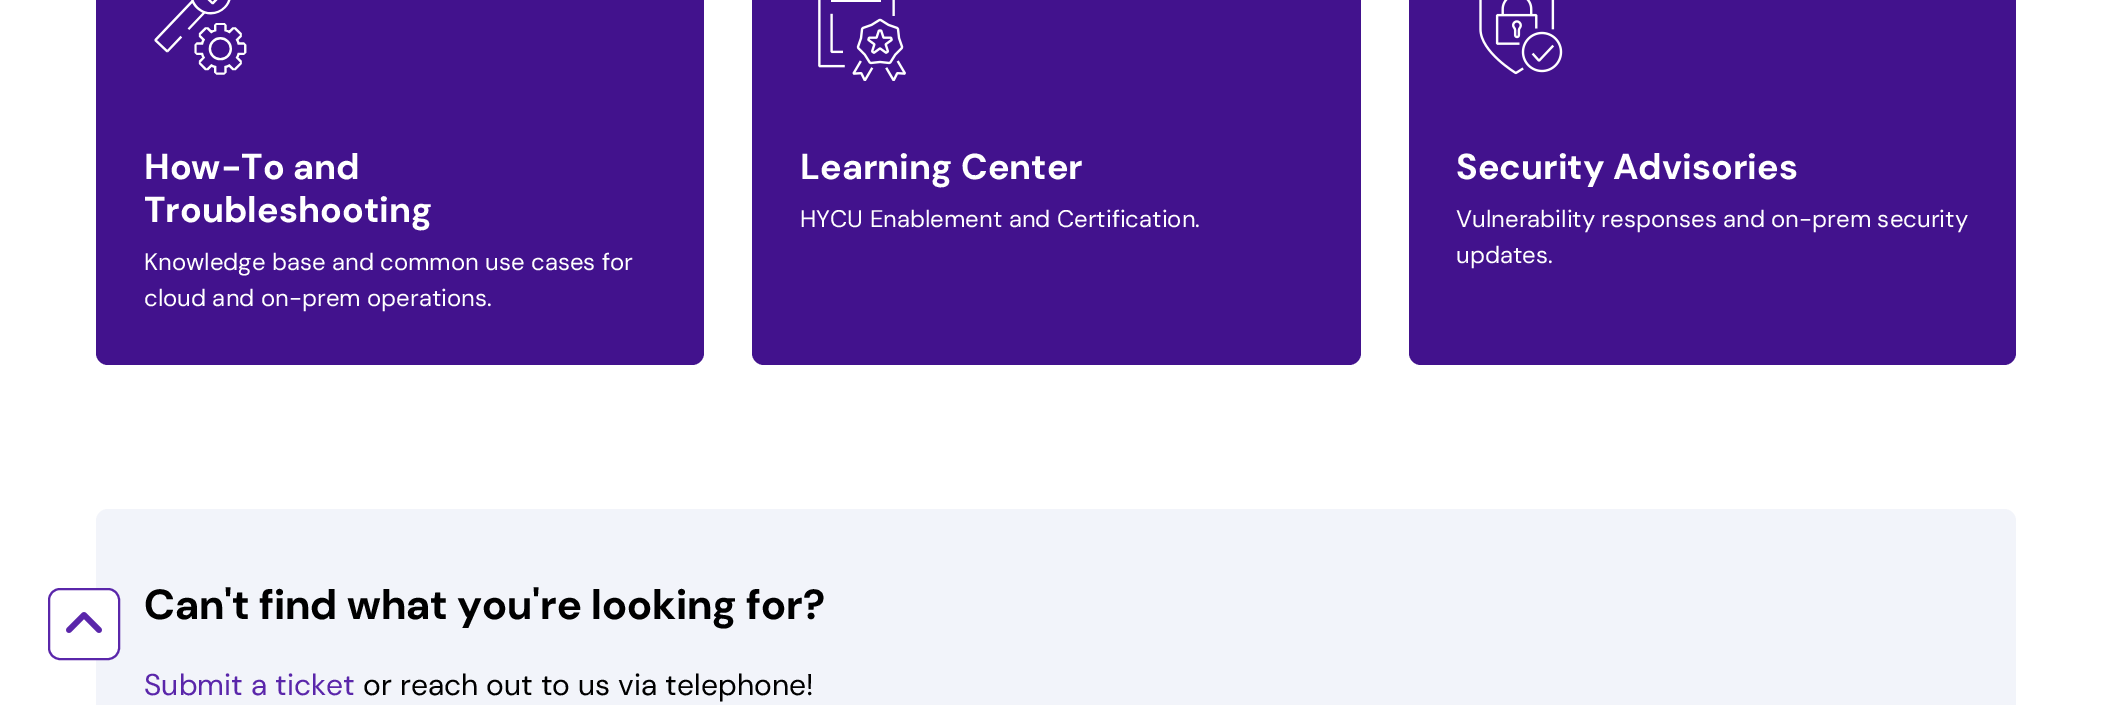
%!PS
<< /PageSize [2112 705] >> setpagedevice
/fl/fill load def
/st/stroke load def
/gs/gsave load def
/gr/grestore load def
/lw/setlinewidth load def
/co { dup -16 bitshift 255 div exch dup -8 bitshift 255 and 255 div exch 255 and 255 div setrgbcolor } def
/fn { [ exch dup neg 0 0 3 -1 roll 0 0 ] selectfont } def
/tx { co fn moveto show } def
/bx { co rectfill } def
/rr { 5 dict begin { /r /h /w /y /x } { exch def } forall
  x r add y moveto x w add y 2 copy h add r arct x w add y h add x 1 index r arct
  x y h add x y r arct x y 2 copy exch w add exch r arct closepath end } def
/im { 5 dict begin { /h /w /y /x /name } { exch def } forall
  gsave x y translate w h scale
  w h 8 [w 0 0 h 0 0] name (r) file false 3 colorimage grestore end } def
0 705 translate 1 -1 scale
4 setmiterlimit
0 0 2112 705 16#FFFFFF bx
16#F2F4FA co
96 509 1920 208 12 rr fl
16#FFFFFF co
49 589 70 70 11 rr gs fl gr
16#5A26AA co
2 lw
st
(media/1.raw) 66 612 36 21 im
16#42128D co
96 -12 608 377 12 rr fl
(media/2.raw) 154 0 93 75 im
752 -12 609 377 12 rr fl
(media/3.raw) 818 0 88 81 im
1409 -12 607 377 12 rr fl
(media/4.raw) 1479 0 84 75 im
(How-To and) 144 179 /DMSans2-Bold 36 16#FFFFFF tx
(Troubleshooting) 144 222 /DMSans2-Bold 36 16#FFFFFF tx
(Knowledge base and common use cases for) 144 270 /DMSans2-Regular 24 16#FFFFFF tx
(cloud and on-prem operations.) 144 306 /DMSans2-Regular 24 16#FFFFFF tx
(Learning Center) 800 179 /DMSans2-Bold 36 16#FFFFFF tx
(HYCU Enablement and Certification.) 800 227 /DMSans2-Regular 24 16#FFFFFF tx
(Security Advisories) 1456 179 /DMSans2-Bold 36 16#FFFFFF tx
(Vulnerability responses and on-prem security) 1456 227 /DMSans2-Regular 24 16#FFFFFF tx
(updates.) 1456 263 /DMSans2-Regular 24 16#FFFFFF tx
(Can't find what you're looking for?) 144 619 /DMSans-Bold 42 16#000000 tx
(Submit a ticket) 144 695 /DMSans-Regular 30 16#5A26AA tx
(or reach out to us via telephone!) 363 695 /DMSans-Regular 30 16#000000 tx
showpage
